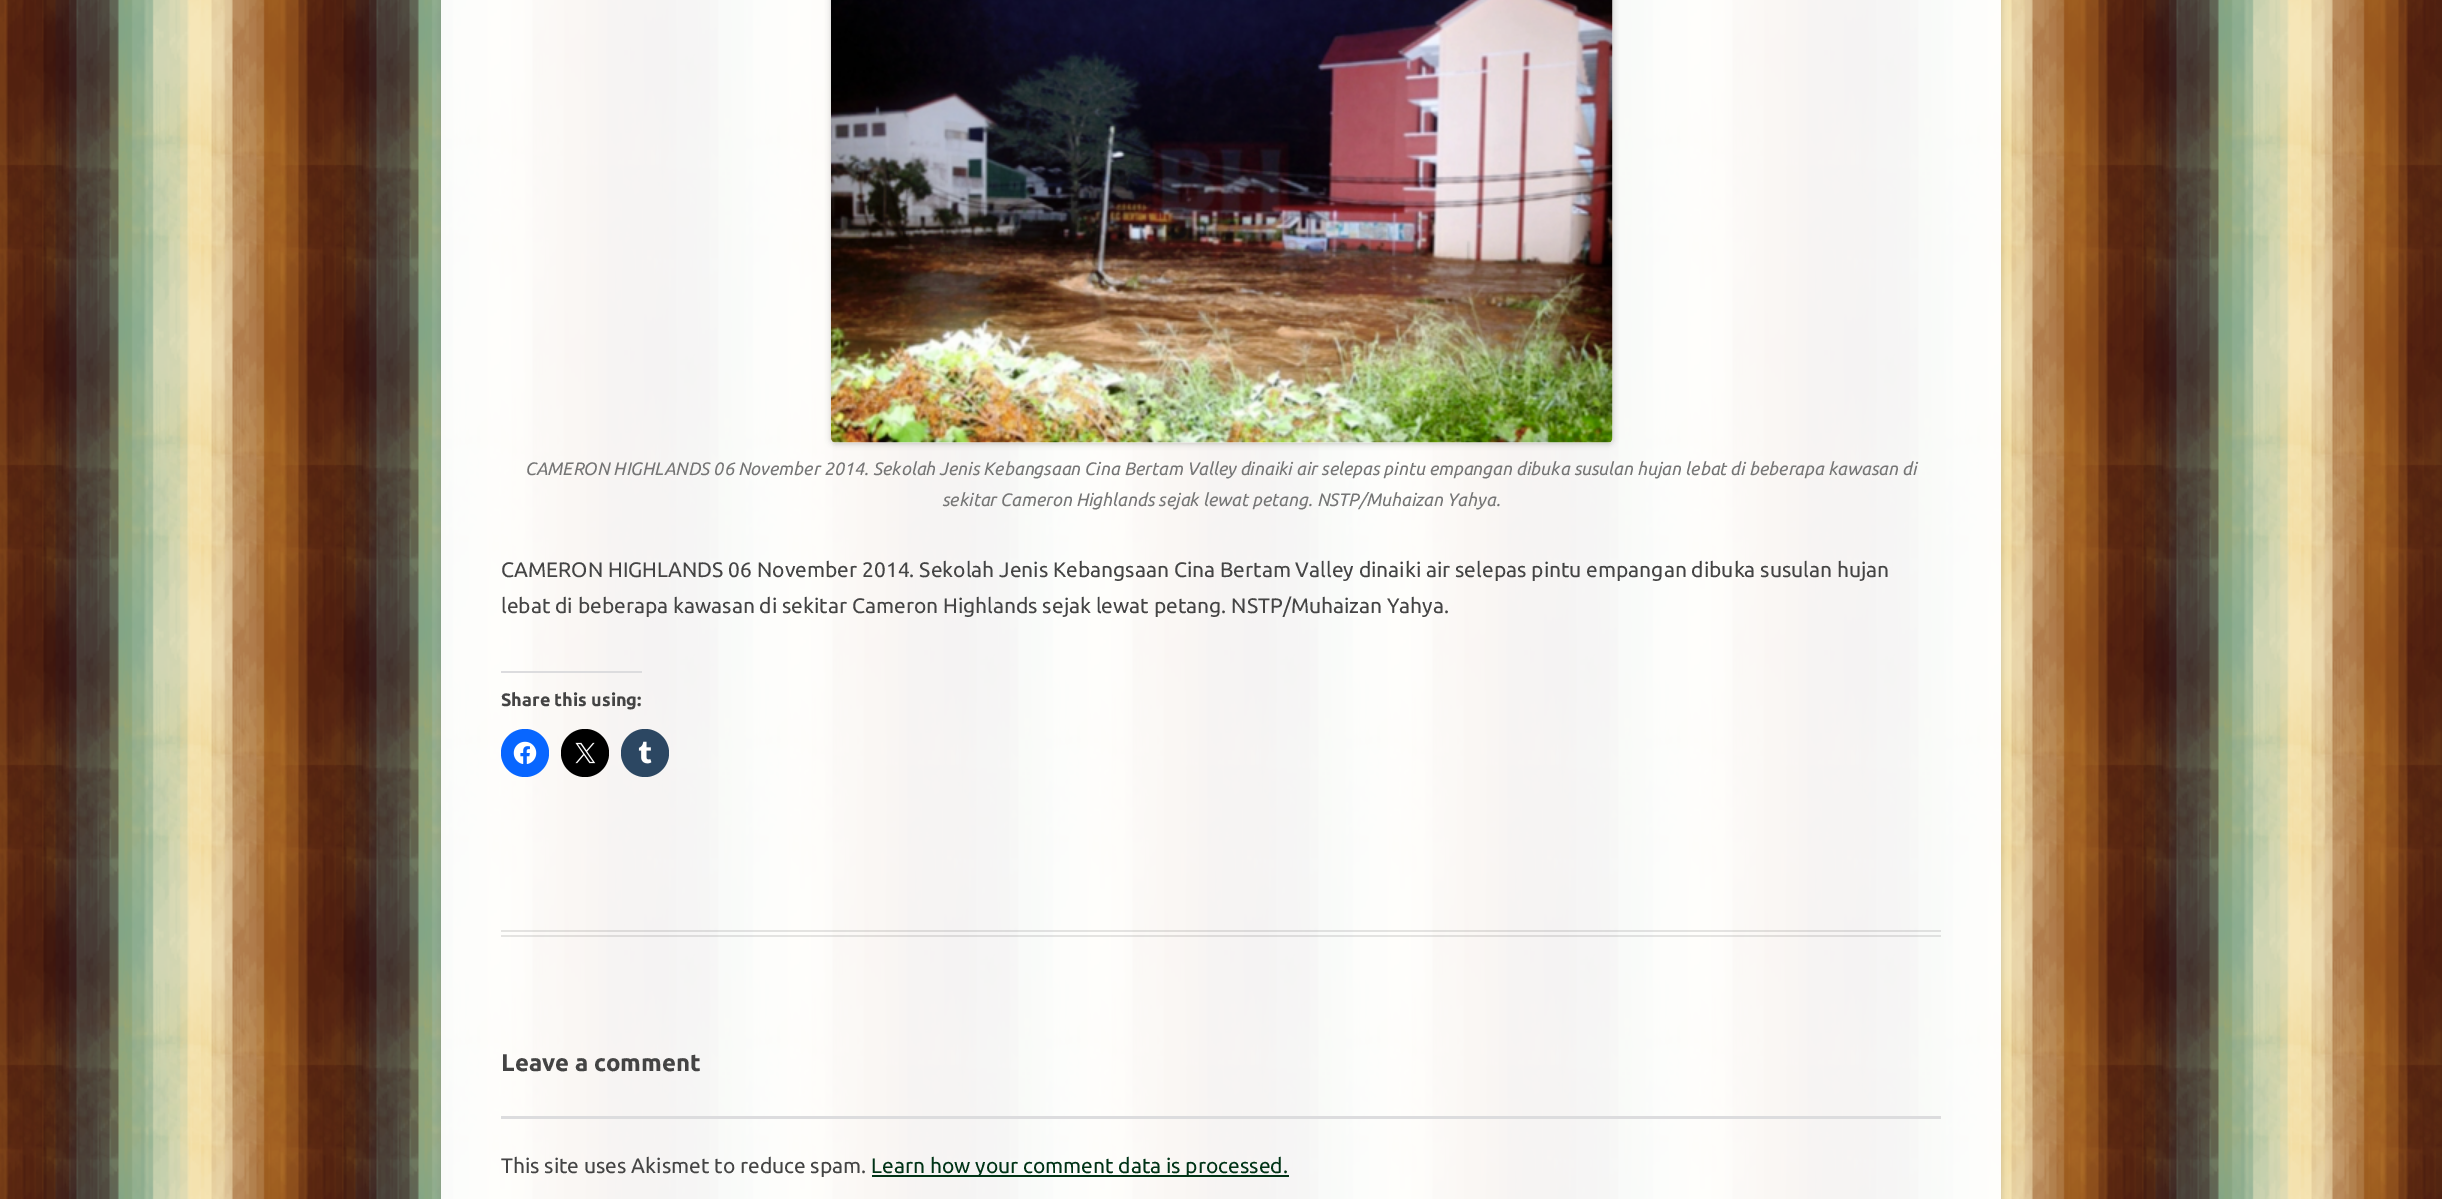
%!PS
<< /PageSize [2442 1199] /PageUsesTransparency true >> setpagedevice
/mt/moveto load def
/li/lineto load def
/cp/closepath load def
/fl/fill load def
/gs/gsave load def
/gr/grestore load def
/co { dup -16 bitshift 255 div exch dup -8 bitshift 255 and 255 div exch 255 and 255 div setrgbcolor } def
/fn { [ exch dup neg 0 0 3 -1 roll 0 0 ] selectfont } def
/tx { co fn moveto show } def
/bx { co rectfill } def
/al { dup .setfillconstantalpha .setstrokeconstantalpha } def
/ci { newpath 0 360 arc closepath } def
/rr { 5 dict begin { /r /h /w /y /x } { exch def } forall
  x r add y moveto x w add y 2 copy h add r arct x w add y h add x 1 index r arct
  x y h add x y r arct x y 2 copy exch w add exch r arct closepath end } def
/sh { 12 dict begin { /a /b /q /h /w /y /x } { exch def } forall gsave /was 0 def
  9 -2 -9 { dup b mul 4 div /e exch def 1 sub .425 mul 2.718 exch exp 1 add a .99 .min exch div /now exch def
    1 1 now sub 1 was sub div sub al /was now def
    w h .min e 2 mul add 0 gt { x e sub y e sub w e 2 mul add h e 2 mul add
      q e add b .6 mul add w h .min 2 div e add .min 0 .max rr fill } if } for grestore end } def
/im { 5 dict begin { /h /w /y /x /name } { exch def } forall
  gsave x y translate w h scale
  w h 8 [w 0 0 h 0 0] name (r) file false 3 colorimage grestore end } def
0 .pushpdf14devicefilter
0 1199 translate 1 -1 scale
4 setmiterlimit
0 0 2442 1199 16#FFFFFF bx
(media/1.raw) 0 0 2442 1199 im
gs
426 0 mt 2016 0 li 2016 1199 li 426 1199 li cp 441 -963 mt 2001 -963 li 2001 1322 li 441 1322 li cp eoclip newpath
16#646464 co
441 -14 1560 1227 0 4.5 .3 sh
gr
0.95 al
441 0 1560 1199 16#FFFFFF bx
0.1 al
501 930 1440 2 16#000000 bx
501 935 1440 2 16#000000 bx
1 al
831 -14 782 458 5 3 .2 sh
(media/2.raw) 831 0 782 443 im
501 671 141 2 16#DCDCDE bx
16#0866FF co
525 753 24 ci fl
(media/3.raw) 513 741 24 23 im
16#000000 co
585 753 24 ci fl
(media/4.raw) 575 742 21 22 im
16#2C4762 co
645 753 24 ci fl
(media/5.raw) 638 741 14 23 im
501 1116 1440 3 16#DCDCDE bx
872 1175 417 2 16#003316 bx
(CAMERON HIGHLANDS 06 November 2014. Sekolah Jenis Kebangsaan Cina Bertam Valley dinaiki air selepas pintu empangan dibuka susulan hujan lebat di beberapa kawasan di) 525 475 /Ubuntu-Italic 18 16#757575 tx
(sekitar Cameron Highlands sejak lewat petang. NSTP/Muhaizan Yahya.) 942 506 /Ubuntu-Italic 18 16#757575 tx
(CAMERON HIGHLANDS 06 November 2014. Sekolah Jenis Kebangsaan Cina Bertam Valley dinaiki air selepas pintu empangan dibuka susulan hujan) 501 577 /Ubuntu-Regular 21 16#444444 tx
(lebat di beberapa kawasan di sekitar Cameron Highlands sejak lewat petang. NSTP/Muhaizan Yahya.) 501 613 /Ubuntu-Regular 21 16#444444 tx
(Share this using:) 501 706 /Ubuntu-Bold 18 16#444444 tx
(Leave a comment) 501 1071 /Ubuntu-Bold 24 16#444444 tx
(This site uses Akismet to reduce spam.) 501 1173 /Ubuntu-Regular 21 16#444444 tx
(Learn how your comment data is processed.) 871 1173 /Ubuntu-Regular 21 16#003316 tx
.poppdf14devicefilter showpage
